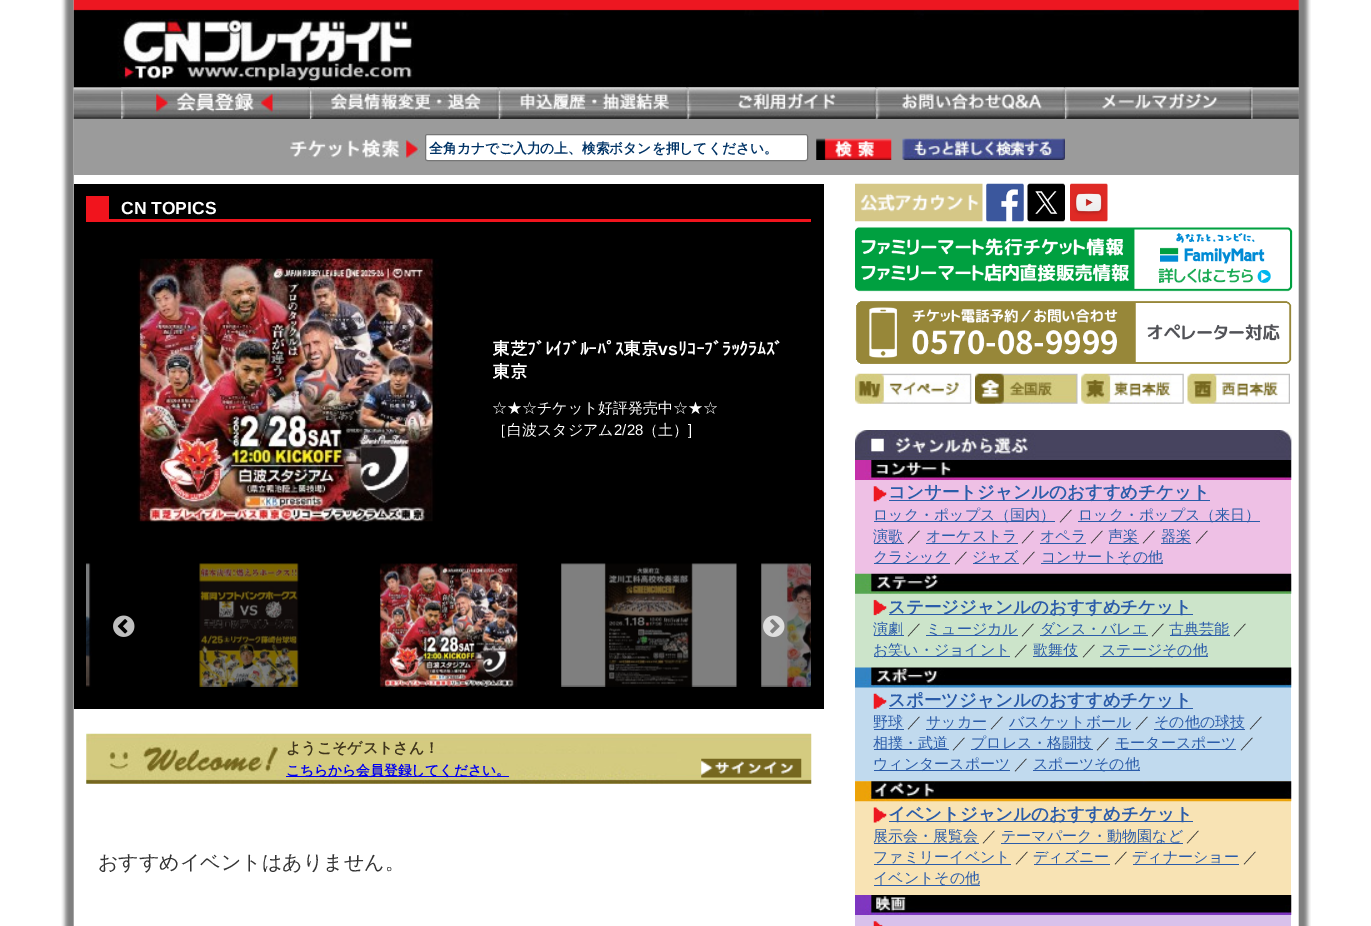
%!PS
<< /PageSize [1371 926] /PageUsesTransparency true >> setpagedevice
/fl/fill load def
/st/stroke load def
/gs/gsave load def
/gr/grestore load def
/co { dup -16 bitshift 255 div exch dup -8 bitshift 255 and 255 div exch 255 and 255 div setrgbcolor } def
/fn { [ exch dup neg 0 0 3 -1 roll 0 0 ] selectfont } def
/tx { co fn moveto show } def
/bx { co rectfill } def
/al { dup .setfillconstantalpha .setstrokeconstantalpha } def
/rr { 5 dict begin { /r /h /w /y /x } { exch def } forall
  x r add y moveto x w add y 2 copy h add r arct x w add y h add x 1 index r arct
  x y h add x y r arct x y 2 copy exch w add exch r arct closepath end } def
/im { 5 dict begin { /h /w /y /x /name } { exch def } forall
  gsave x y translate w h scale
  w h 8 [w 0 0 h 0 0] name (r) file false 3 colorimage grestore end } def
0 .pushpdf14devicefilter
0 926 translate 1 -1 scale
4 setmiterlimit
0 0 1371 926 16#FFFFFF bx
(media/1.raw) 61 0 1250 926 im
74 0 1225 175 16#9B9B9B bx
(media/2.raw) 73 0 1226 88 im
(media/3.raw) 117 18 297 64 im
(media/4.raw) 73 87 1226 32 im
(media/5.raw) 121 87 188 32 im
(media/6.raw) 310 87 188 32 im
(media/7.raw) 498 87 189 32 im
(media/8.raw) 687 87 188 32 im
(media/9.raw) 876 87 188 32 im
(media/10.raw) 1065 87 188 32 im
(media/11.raw) 290 138 130 21 im
16#FFFFFF co
425.5 134.5 382 26 2 rr gs fl gr
16#767676 co
st
(media/12.raw) 816 138 76 22 im
(media/13.raw) 902 138 163 22 im
74 184 750 525 16#000000 bx
86 219 725 3 16#F1141D bx
86 196 23 23 16#F1141D bx
(media/14.raw) 137 258 302 264 im
(media/15.raw) 86 563 6 124 im
0.5 al
86 563 5 124 16#000000 bx
1 al
(media/16.raw) 198 563 103 124 im
0.5 al
198 563 103 124 16#000000 bx
1 al
(media/17.raw) 379 563 140 124 im
(media/18.raw) 561 563 176 124 im
0.5 al
561 563 175 124 16#000000 bx
1 al
(media/19.raw) 761 563 50 124 im
0.5 al
761 563 50 124 16#000000 bx
1 al
(media/20.raw) 113 615 22 22 im
(media/21.raw) 763 615 22 22 im
(media/22.raw) 86 733 726 51 im
286 776 223 1 16#0000EE bx
(media/23.raw) 701 758 101 20 im
(media/24.raw) 855 183 128 39 im
(media/25.raw) 986 183 38 39 im
(media/26.raw) 1027 183 38 39 im
(media/27.raw) 1070 183 38 39 im
(media/28.raw) 855 227 438 65 im
(media/29.raw) 856 301 436 63 im
(media/30.raw) 855 373 117 31 im
(media/31.raw) 975 373 103 31 im
(media/32.raw) 1081 373 103 31 im
(media/33.raw) 1187 373 103 31 im
(media/34.raw) 855 430 437 30 im
855 480 436 94 16#EEC0E5 bx
(media/35.raw) 855 460 437 20 im
(media/36.raw) 873 486 14 16 im
889 500 321 1 16#2B5CA9 bx
874 521 181 1 16#2B5CA9 bx
1078 521 182 1 16#2B5CA9 bx
874 543 30 1 16#2B5CA9 bx
926 543 92 1 16#2B5CA9 bx
1040 543 46 1 16#2B5CA9 bx
1109 543 30 1 16#2B5CA9 bx
1161 543 30 1 16#2B5CA9 bx
874 563 76 1 16#2B5CA9 bx
973 563 46 1 16#2B5CA9 bx
1041 563 122 1 16#2B5CA9 bx
855 593 436 75 16#CCE4CA bx
(media/37.raw) 855 573 437 21 im
(media/38.raw) 873 599 14 17 im
889 614 304 1 16#2B5CA9 bx
874 635 30 1 16#2B5CA9 bx
926 635 92 1 16#2B5CA9 bx
1040 635 108 1 16#2B5CA9 bx
1170 635 60 1 16#2B5CA9 bx
874 656 136 1 16#2B5CA9 bx
1033 656 45 1 16#2B5CA9 bx
1100 656 108 1 16#2B5CA9 bx
855 687 436 94 16#C1DAEE bx
(media/39.raw) 855 667 437 21 im
(media/40.raw) 873 693 14 16 im
889 708 304 1 16#2B5CA9 bx
874 729 30 1 16#2B5CA9 bx
926 729 60 1 16#2B5CA9 bx
1009 729 122 1 16#2B5CA9 bx
1154 729 91 1 16#2B5CA9 bx
874 749 75 1 16#2B5CA9 bx
971 749 122 1 16#2B5CA9 bx
1115 749 121 1 16#2B5CA9 bx
874 770 136 1 16#2B5CA9 bx
1033 770 107 1 16#2B5CA9 bx
855 781 436 114 16#F8E3B4 bx
(media/41.raw) 855 781 437 21 im
(media/42.raw) 873 807 14 16 im
889 821 304 1 16#2B5CA9 bx
874 843 105 1 16#2B5CA9 bx
1001 843 182 1 16#2B5CA9 bx
874 864 137 1 16#2B5CA9 bx
1034 864 76 1 16#2B5CA9 bx
1133 864 106 1 16#2B5CA9 bx
874 885 106 1 16#2B5CA9 bx
855 915 436 11 16#D8C1EB bx
(media/43.raw) 855 895 437 20 im
(media/44.raw) 873 921 10 5 im
(全角カナでご入力の上、検索ボタンを押してください。) 429 153 /WenQuanYiZenHei-Bold 13.75 16#003366 tx
(CN TOPICS) 121 214 /LiberationSans-Bold 17.5 16#FFFFFF tx
(東芝ﾌﾞﾚｲﾌﾞﾙｰﾊﾟｽ東京) 492 355 /IPAPGothic-Bold 17.5 16#FFFFFF tx
(vs) 658 355 /LiberationSans-Bold 17.5 16#FFFFFF tx
(ﾘｺｰﾌﾞﾗｯｸﾗﾑｽﾞ) 678 355 /IPAPGothic-Bold 17.5 16#FFFFFF tx
(東京) 492 378 /IPAPGothic-Bold 17.5 16#FFFFFF tx
(☆★☆チケット好評発売中☆★☆) 492 413 /WenQuanYiZenHei-Medium 15 16#FFFFFF tx
(［白波スタジアム) 492 435 /WenQuanYiZenHei-Medium 15 16#FFFFFF tx
(2/28) 614 435 /LiberationSans-Regular 15 16#FFFFFF tx
(（土）) 643 435 /WenQuanYiZenHei-Medium 15 16#FFFFFF tx
(]) 688 435 /LiberationSans-Regular 15 16#FFFFFF tx
(ようこそゲストさん！) 286 753 /WenQuanYiZenHei-Bold 15 16#40351C tx
(こちらから会員登録してください。) 286 775 /WenQuanYiZenHei-Bold 13.75 16#0000EE tx
(おすすめイベントはありません。) 98 869 /WenQuanYiZenHei-Medium 20 16#333333 tx
(コンサートジャンルのおすすめチケット) 888 498 /WenQuanYiZenHei-Bold 17.5 16#2B5CA9 tx
(ロック・ポップス（国内）) 873 520 /WenQuanYiZenHei-Medium 15 16#2B5CA9 tx
(／) 1059 520 /WenQuanYiZenHei-Medium 15 16#333333 tx
(ロック・ポップス（来日）) 1078 520 /WenQuanYiZenHei-Medium 15 16#2B5CA9 tx
(演歌) 873 541 /WenQuanYiZenHei-Medium 15 16#2B5CA9 tx
(／) 907 541 /WenQuanYiZenHei-Medium 15 16#333333 tx
(オーケストラ) 926 541 /WenQuanYiZenHei-Medium 15 16#2B5CA9 tx
(／) 1021 541 /WenQuanYiZenHei-Medium 15 16#333333 tx
(オペラ) 1040 541 /WenQuanYiZenHei-Medium 15 16#2B5CA9 tx
(／) 1090 541 /WenQuanYiZenHei-Medium 15 16#333333 tx
(声楽) 1108 541 /WenQuanYiZenHei-Medium 15 16#2B5CA9 tx
(／) 1142 541 /WenQuanYiZenHei-Medium 15 16#333333 tx
(器楽) 1161 541 /WenQuanYiZenHei-Medium 15 16#2B5CA9 tx
(／) 1195 541 /WenQuanYiZenHei-Medium 15 16#333333 tx
(クラシック) 873 562 /WenQuanYiZenHei-Medium 15 16#2B5CA9 tx
(／) 954 562 /WenQuanYiZenHei-Medium 15 16#333333 tx
(ジャズ) 972 562 /WenQuanYiZenHei-Medium 15 16#2B5CA9 tx
(／) 1022 562 /WenQuanYiZenHei-Medium 15 16#333333 tx
(コンサートその他) 1041 562 /WenQuanYiZenHei-Medium 15 16#2B5CA9 tx
(ステージジャンルのおすすめチケット) 888 613 /WenQuanYiZenHei-Bold 17.5 16#2B5CA9 tx
(演劇) 873 634 /WenQuanYiZenHei-Medium 15 16#2B5CA9 tx
(／) 907 634 /WenQuanYiZenHei-Medium 15 16#333333 tx
(ミュージカル) 926 634 /WenQuanYiZenHei-Medium 15 16#2B5CA9 tx
(／) 1021 634 /WenQuanYiZenHei-Medium 15 16#333333 tx
(ダンス・バレエ) 1040 634 /WenQuanYiZenHei-Medium 15 16#2B5CA9 tx
(／) 1151 634 /WenQuanYiZenHei-Medium 15 16#333333 tx
(古典芸能) 1169 634 /WenQuanYiZenHei-Medium 15 16#2B5CA9 tx
(／) 1233 634 /WenQuanYiZenHei-Medium 15 16#333333 tx
(お笑い・ジョイント) 873 655 /WenQuanYiZenHei-Medium 15 16#2B5CA9 tx
(／) 1014 655 /WenQuanYiZenHei-Medium 15 16#333333 tx
(歌舞伎) 1033 655 /WenQuanYiZenHei-Medium 15 16#2B5CA9 tx
(／) 1082 655 /WenQuanYiZenHei-Medium 15 16#333333 tx
(ステージその他) 1101 655 /WenQuanYiZenHei-Medium 15 16#2B5CA9 tx
(スポーツジャンルのおすすめチケット) 888 706 /WenQuanYiZenHei-Bold 17.5 16#2B5CA9 tx
(野球) 873 727 /WenQuanYiZenHei-Medium 15 16#2B5CA9 tx
(／) 907 727 /WenQuanYiZenHei-Medium 15 16#333333 tx
(サッカー) 926 727 /WenQuanYiZenHei-Medium 15 16#2B5CA9 tx
(／) 990 727 /WenQuanYiZenHei-Medium 15 16#333333 tx
(バスケットボール) 1009 727 /WenQuanYiZenHei-Medium 15 16#2B5CA9 tx
(／) 1135 727 /WenQuanYiZenHei-Medium 15 16#333333 tx
(その他の球技) 1154 727 /WenQuanYiZenHei-Medium 15 16#2B5CA9 tx
(／) 1249 727 /WenQuanYiZenHei-Medium 15 16#333333 tx
(相撲・武道) 873 748 /WenQuanYiZenHei-Medium 15 16#2B5CA9 tx
(／) 952 748 /WenQuanYiZenHei-Medium 15 16#333333 tx
(プロレス・格闘技) 971 748 /WenQuanYiZenHei-Medium 15 16#2B5CA9 tx
(／) 1096 748 /WenQuanYiZenHei-Medium 15 16#333333 tx
(モータースポーツ) 1115 748 /WenQuanYiZenHei-Medium 15 16#2B5CA9 tx
(／) 1240 748 /WenQuanYiZenHei-Medium 15 16#333333 tx
(ウィンタースポーツ) 873 769 /WenQuanYiZenHei-Medium 15 16#2B5CA9 tx
(／) 1014 769 /WenQuanYiZenHei-Medium 15 16#333333 tx
(スポーツその他) 1033 769 /WenQuanYiZenHei-Medium 15 16#2B5CA9 tx
(イベントジャンルのおすすめチケット) 888 820 /WenQuanYiZenHei-Bold 17.5 16#2B5CA9 tx
(展示会・展覧会) 873 841 /WenQuanYiZenHei-Medium 15 16#2B5CA9 tx
(／) 982 841 /WenQuanYiZenHei-Medium 15 16#333333 tx
(テーマパーク・動物園など) 1001 841 /WenQuanYiZenHei-Medium 15 16#2B5CA9 tx
(／) 1186 841 /WenQuanYiZenHei-Medium 15 16#333333 tx
(ファミリーイベント) 873 862 /WenQuanYiZenHei-Medium 15 16#2B5CA9 tx
(／) 1015 862 /WenQuanYiZenHei-Medium 15 16#333333 tx
(ディズニー) 1033 862 /WenQuanYiZenHei-Medium 15 16#2B5CA9 tx
(／) 1114 862 /WenQuanYiZenHei-Medium 15 16#333333 tx
(ディナーショー) 1132 862 /WenQuanYiZenHei-Medium 15 16#2B5CA9 tx
(／) 1243 862 /WenQuanYiZenHei-Medium 15 16#333333 tx
(イベントその他) 873 883 /WenQuanYiZenHei-Medium 15 16#2B5CA9 tx
.poppdf14devicefilter showpage
